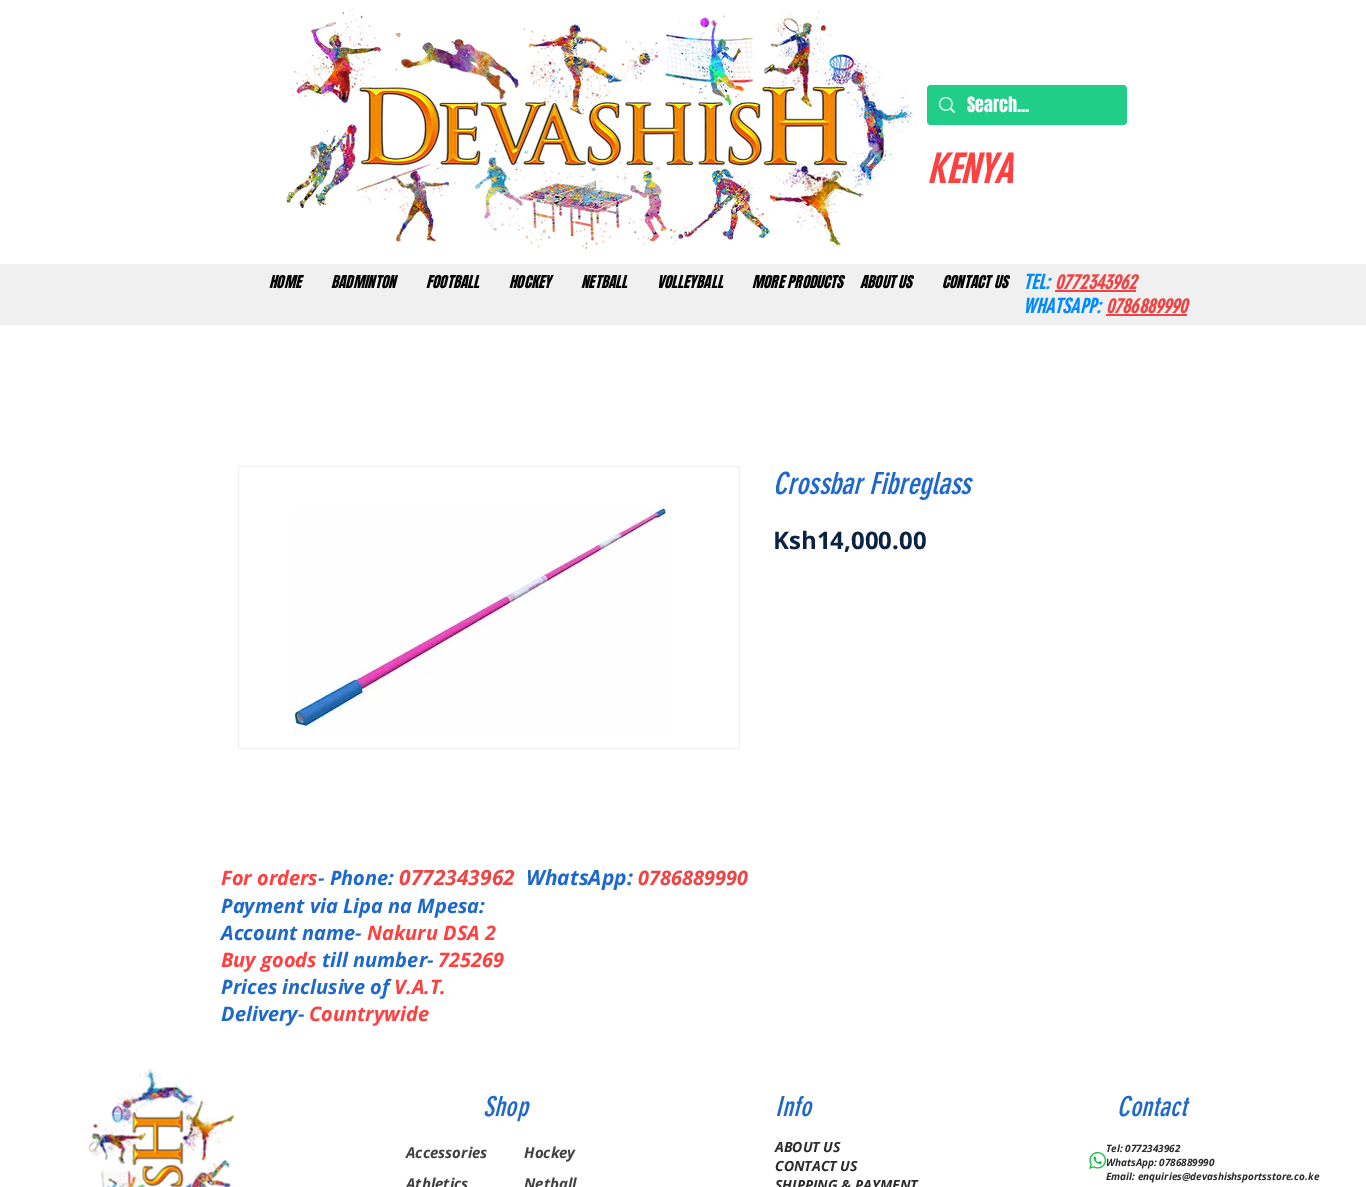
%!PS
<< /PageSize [1366 1187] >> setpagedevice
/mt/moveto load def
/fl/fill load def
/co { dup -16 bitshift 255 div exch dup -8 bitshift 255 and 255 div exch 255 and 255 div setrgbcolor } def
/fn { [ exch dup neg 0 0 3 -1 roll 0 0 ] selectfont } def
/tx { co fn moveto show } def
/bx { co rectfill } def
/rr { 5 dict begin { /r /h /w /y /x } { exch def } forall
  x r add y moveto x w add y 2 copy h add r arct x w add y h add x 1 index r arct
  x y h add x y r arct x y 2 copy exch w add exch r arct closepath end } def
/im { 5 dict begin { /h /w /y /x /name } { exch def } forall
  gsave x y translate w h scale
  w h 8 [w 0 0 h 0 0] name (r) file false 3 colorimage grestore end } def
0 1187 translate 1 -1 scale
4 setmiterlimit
0 0 1366 1187 16#FFFFFF bx
(media/1.raw) 286 8 628 242 im
16#20CE88 co
927 85 200 40 4 rr fl
(media/2.raw) 939 97 16 16 im
0 264 1366 61 16#F0F0F0 bx
1055 290 81 2 16#ED4545 bx
1106 314 81 2 16#ED4545 bx
16#F0F0F0 co
238.5 466.5 501 282 rectstroke
(media/3.raw) 294 507 378 225 im
(media/4.raw) 84 1068 151 119 im
(media/5.raw) 1089 1152 17 17 im
(Search...) 967 112 /Anton-Regular 18 16#FFFFFF tx
(KENYA) 927 183 /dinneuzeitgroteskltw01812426-BoldItalic 40 16#FF4040 tx
(HOME) 269 288 /Anton-Italic 15 16#000000 tx
(BADMINTON) 331 288 /Anton-Italic 15 16#000000 tx
(FOOTBALL) 426 288 /Anton-Italic 15 16#000000 tx
(HOCKEY) 509 288 /Anton-Italic 15 16#000000 tx
(NETBALL) 581 288 /Anton-Italic 15 16#000000 tx
(VOLLEYBALL) 657 288 /Anton-Italic 15 16#000000 tx
(MORE PRODUCTS) 752 288 /Anton-Italic 15 16#000000 tx
(ABOUT US) 860 288 /Anton-Italic 15 16#000000 tx
(CONTACT US) 942 288 /Anton-Italic 15 16#000000 tx
(TEL:) 1023 289 /dinneuzeitgroteskltw01812426-BoldItalic 20 16#008AFC tx
(0772343962) 1055 289 /dinneuzeitgroteskltw01812426-BoldItalic 20 16#ED4545 tx
(WHATSAPP:) 1023 313 /dinneuzeitgroteskltw01812426-BoldItalic 20 16#008AFC tx
(0786889990) 1106 313 /dinneuzeitgroteskltw01812426-BoldItalic 20 16#ED4545 tx
(Crossbar Fibreglass) 773 494 /dinneuzeitgroteskltw01812426-Italic 30 16#1E68CB tx
(Ksh14,000.00) 773 549 /OpenSans-Bold 24 16#0A2344 tx
(For orders) 221 885 /OpenSans-BoldItalic 20 16#FF4040 tx
(- Phone:) 318 885 /OpenSans-BoldItalic 20 16#1E68CB tx
(0772343962) 399 885 /OpenSans-BoldItalic 21 16#ED4545 tx
(WhatsApp:) 526 885 /OpenSans-BoldItalic 21 16#1E68CB tx
(0786889990) 638 885 /OpenSans-BoldItalic 20 16#ED4545 tx
(Payment via Lipa na Mpesa:) 221 913 /OpenSans-BoldItalic 20 16#1E68CB tx
(Account name-) 221 940 /OpenSans-BoldItalic 20 16#1E68CB tx
(Nakuru DSA 2) 367 940 /OpenSans-BoldItalic 20 16#FF4040 tx
(Buy goods) 221 967 /OpenSans-BoldItalic 20 16#FF4040 tx
(till number-) 322 967 /OpenSans-BoldItalic 20 16#1E68CB tx
(725269) 438 967 /OpenSans-BoldItalic 20 16#FF4040 tx
(Prices inclusive of) 221 994 /OpenSans-BoldItalic 20 16#1E68CB tx
(V.A.T.) 394 994 /OpenSans-BoldItalic 20 16#FF4040 tx
(Delivery-) 221 1021 /OpenSans-BoldItalic 20 16#1E68CB tx
(Countrywide) 309 1021 /OpenSans-BoldItalic 20 16#FF4040 tx
/dinneuzeitgroteskltw01812426-Italic 27 fn
16#1E68CB co
483 1116 mt .25 0 (Shop) ashow
(Accessories) 406 1158 /OpenSans-BoldItalic 15 16#414141 tx
(Athletics) 406 1189 /OpenSans-BoldItalic 15 16#414141 tx
(Hockey) 524 1158 /OpenSans-BoldItalic 15 16#414141 tx
(Netball) 524 1189 /OpenSans-BoldItalic 15 16#414141 tx
/dinneuzeitgroteskltw01812426-Italic 27 fn
16#1E68CB co
775 1116 mt .25 0 (Info) ashow
(ABOUT US) 775 1152 /OpenSans-BoldItalic 14 16#2B2B2B tx
(CONTACT US) 775 1171 /OpenSans-BoldItalic 14 16#2B2B2B tx
(SHIPPING & PAYMENT) 775 1190 /OpenSans-BoldItalic 14 16#2B2B2B tx
/dinneuzeitgroteskltw01812426-Italic 27 fn
16#1E68CB co
1117 1116 mt .25 0 (Contact) ashow
(Tel: 0772343962) 1106 1152 /OpenSans-BoldItalic 10 16#2B2B2B tx
(WhatsApp: 0786889990) 1106 1166 /OpenSans-BoldItalic 10 16#2B2B2B tx
(Email: enquiries@devashishsportsstore.co.ke) 1106 1180 /OpenSans-BoldItalic 10 16#2B2B2B tx
showpage
